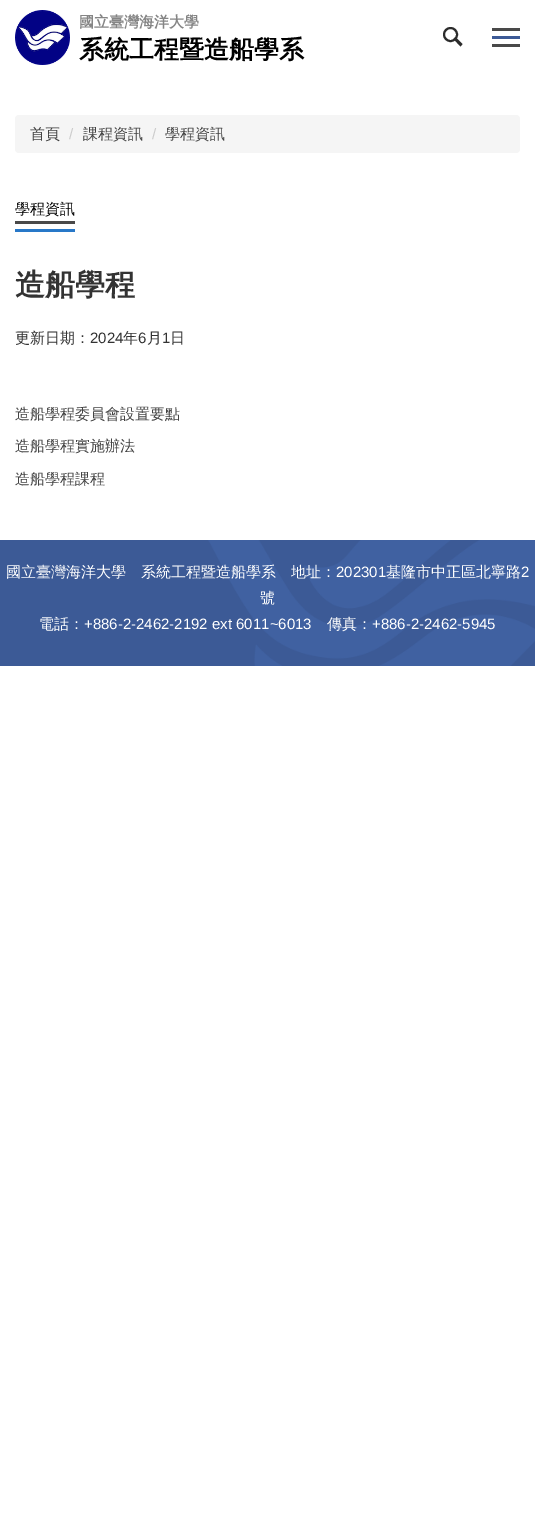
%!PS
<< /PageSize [535 1516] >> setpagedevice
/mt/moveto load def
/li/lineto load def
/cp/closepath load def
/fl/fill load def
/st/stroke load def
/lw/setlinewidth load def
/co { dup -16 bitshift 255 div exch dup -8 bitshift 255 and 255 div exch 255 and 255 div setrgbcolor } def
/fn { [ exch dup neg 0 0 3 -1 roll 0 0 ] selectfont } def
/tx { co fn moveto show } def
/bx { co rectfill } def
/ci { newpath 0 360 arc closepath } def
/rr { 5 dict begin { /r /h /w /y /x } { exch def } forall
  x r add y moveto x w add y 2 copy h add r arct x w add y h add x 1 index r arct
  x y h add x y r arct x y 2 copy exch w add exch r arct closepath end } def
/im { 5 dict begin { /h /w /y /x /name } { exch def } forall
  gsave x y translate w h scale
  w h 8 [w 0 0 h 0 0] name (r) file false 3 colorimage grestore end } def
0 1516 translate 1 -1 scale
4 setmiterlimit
0 0 535 1516 16#FFFFFF bx
(media/1.raw) 15 10 55 55 im
16#2C2C2C co
2 lw
450.5 34.5 6.5 ci st
455.5 37 mt 462.5 44 li 460.5 46.5 li 453.5 39 li cp fl
492 36 28 3 16#3C5A96 bx
492 28 28 3 16#494949 bx
492 44 28 3 16#494949 bx
16#F5F5F5 co
15 115 505 38 4 rr fl
15 229 60 3 16#2878C8 bx
15 221 60 3 16#494949 bx
0 540 535 126 16#3C5A96 bx
(media/2.raw) 208 540 327 126 im
(國立臺灣海洋大學) 79 27 /WenQuanYiZenHei-Bold 15 16#858585 tx
(系統工程暨造船學系) 79 58 /WenQuanYiZenHei-Bold 25 16#000000 tx
(首頁) 30 139 /WenQuanYiZenHei-Medium 15 16#434343 tx
(/) 69 139 /LiberationSans-Regular 15 16#CCCCCC tx
(課程資訊) 83 139 /WenQuanYiZenHei-Medium 15 16#434343 tx
(/) 152 139 /LiberationSans-Regular 15 16#CCCCCC tx
(學程資訊) 165 139 /WenQuanYiZenHei-Medium 15 16#434343 tx
(學程資訊) 15 214 /WenQuanYiZenHei-Medium 15 16#000000 tx
(造船學程) 15 295 /WenQuanYiZenHei-Bold 30 16#333333 tx
(更新日期：) 15 343 /WenQuanYiZenHei-Medium 15 16#333333 tx
(2024) 90 343 /LiberationSans-Regular 15 16#333333 tx
(年) 123 343 /WenQuanYiZenHei-Medium 15 16#333333 tx
(6) 138 343 /LiberationSans-Regular 15 16#333333 tx
(月) 147 343 /WenQuanYiZenHei-Medium 15 16#333333 tx
(1) 162 343 /LiberationSans-Regular 15 16#333333 tx
(日) 170 343 /WenQuanYiZenHei-Medium 15 16#333333 tx
(造船學程委員會設置要點) 15 419 /WenQuanYiZenHei-Medium 15 16#434343 tx
(造船學程實施辦法) 15 451 /WenQuanYiZenHei-Medium 15 16#434343 tx
(造船學程課程) 15 484 /WenQuanYiZenHei-Medium 15 16#434343 tx
(國立臺灣海洋大學　系統工程暨造船學系　地址：) 6 577 /WenQuanYiZenHei-Medium 15 16#FFFFFF tx
(202301) 336 577 /LiberationSans-Regular 15 16#FFFFFF tx
(基隆市中正區北寧路) 386 577 /WenQuanYiZenHei-Medium 15 16#FFFFFF tx
(2) 521 577 /LiberationSans-Regular 15 16#FFFFFF tx
(號) 260 603 /WenQuanYiZenHei-Medium 15 16#FFFFFF tx
(電話：) 39 629 /WenQuanYiZenHei-Medium 15 16#FFFFFF tx
(+886-2-2462-2192 ext 6011~6013) 84 629 /LiberationSans-Regular 15 16#FFFFFF tx
(傳真：) 327 629 /WenQuanYiZenHei-Medium 15 16#FFFFFF tx
(+886-2-2462-5945) 372 629 /LiberationSans-Regular 15 16#FFFFFF tx
showpage
